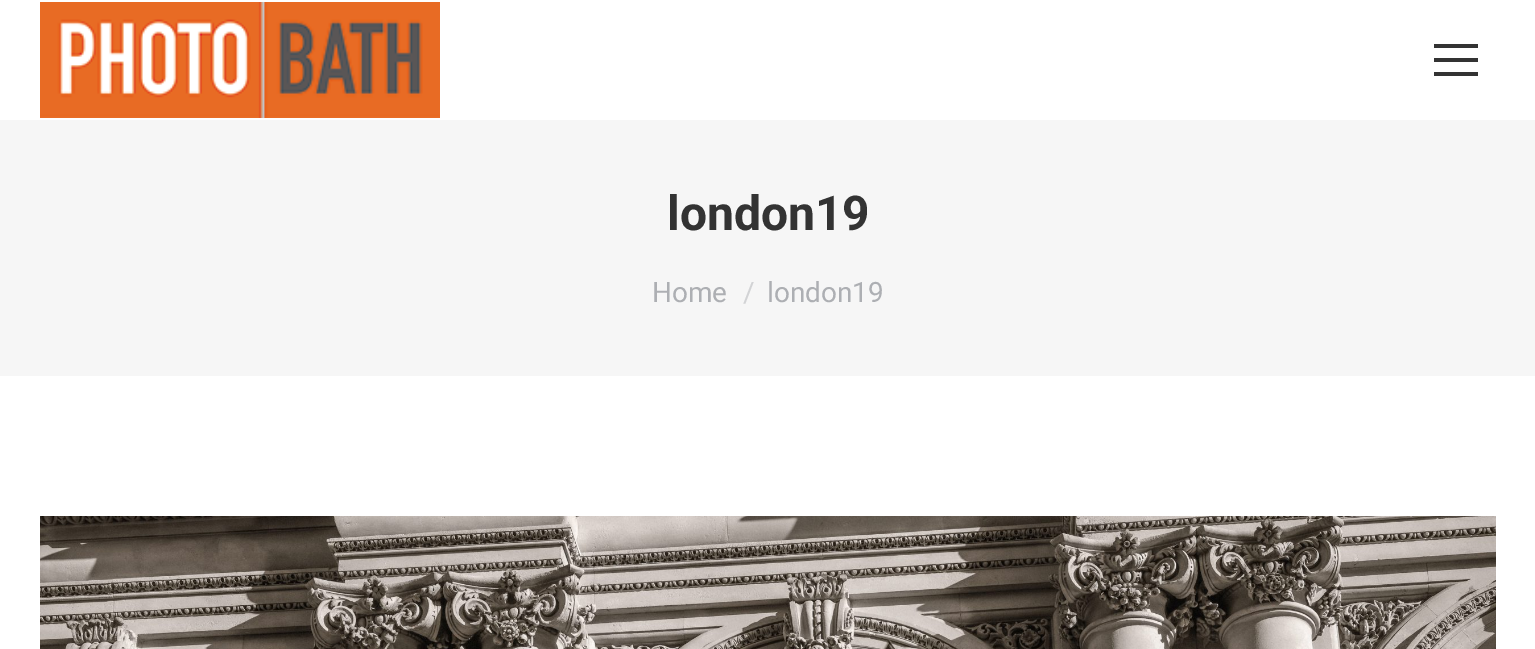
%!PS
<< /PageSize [1535 649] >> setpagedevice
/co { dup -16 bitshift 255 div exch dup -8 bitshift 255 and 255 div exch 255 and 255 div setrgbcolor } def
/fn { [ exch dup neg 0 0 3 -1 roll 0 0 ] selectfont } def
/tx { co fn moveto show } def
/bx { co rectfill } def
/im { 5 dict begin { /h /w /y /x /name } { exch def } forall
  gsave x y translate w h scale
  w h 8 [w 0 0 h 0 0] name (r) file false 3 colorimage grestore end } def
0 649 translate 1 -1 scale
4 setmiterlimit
0 0 1535 649 16#FFFFFF bx
(media/1.raw) 40 2 400 116 im
1434 44 44 4 16#333333 bx
1434 58 44 4 16#333333 bx
1434 72 44 4 16#333333 bx
0 120 1535 256 16#F6F6F6 bx
(media/2.raw) 40 516 1456 133 im
(london19) 667 230 /Roboto-Bold 48 16#333333 tx
(Home) 652 302 /Roboto-Regular 28 16#ADAFB3 tx
(/) 743 302 /Roboto-Regular 28 16#D2D3D5 tx
(london19) 767 302 /Roboto-Regular 28 16#ADAFB3 tx
showpage
